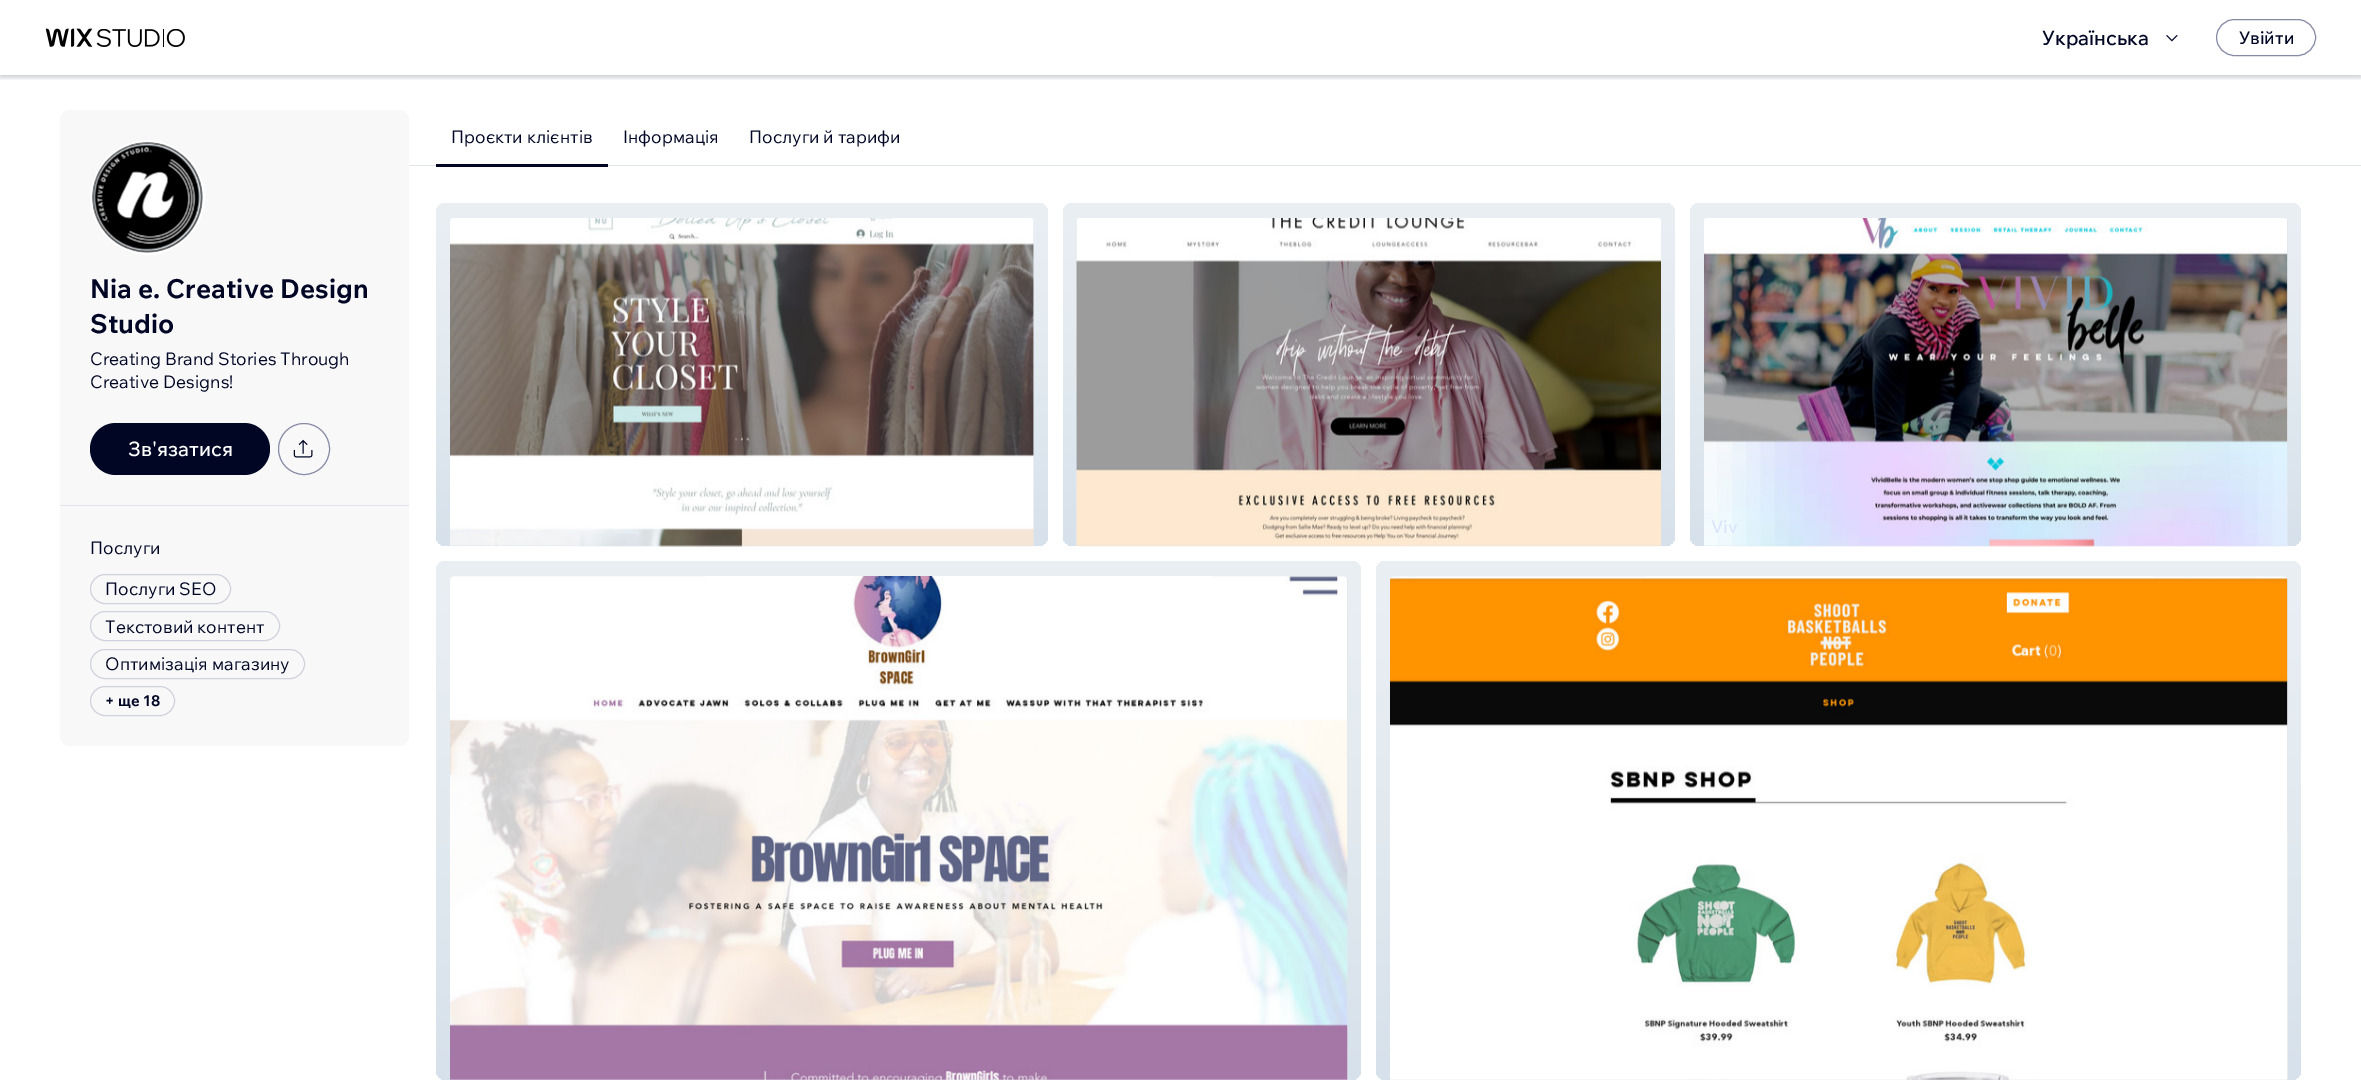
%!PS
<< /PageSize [2361 1086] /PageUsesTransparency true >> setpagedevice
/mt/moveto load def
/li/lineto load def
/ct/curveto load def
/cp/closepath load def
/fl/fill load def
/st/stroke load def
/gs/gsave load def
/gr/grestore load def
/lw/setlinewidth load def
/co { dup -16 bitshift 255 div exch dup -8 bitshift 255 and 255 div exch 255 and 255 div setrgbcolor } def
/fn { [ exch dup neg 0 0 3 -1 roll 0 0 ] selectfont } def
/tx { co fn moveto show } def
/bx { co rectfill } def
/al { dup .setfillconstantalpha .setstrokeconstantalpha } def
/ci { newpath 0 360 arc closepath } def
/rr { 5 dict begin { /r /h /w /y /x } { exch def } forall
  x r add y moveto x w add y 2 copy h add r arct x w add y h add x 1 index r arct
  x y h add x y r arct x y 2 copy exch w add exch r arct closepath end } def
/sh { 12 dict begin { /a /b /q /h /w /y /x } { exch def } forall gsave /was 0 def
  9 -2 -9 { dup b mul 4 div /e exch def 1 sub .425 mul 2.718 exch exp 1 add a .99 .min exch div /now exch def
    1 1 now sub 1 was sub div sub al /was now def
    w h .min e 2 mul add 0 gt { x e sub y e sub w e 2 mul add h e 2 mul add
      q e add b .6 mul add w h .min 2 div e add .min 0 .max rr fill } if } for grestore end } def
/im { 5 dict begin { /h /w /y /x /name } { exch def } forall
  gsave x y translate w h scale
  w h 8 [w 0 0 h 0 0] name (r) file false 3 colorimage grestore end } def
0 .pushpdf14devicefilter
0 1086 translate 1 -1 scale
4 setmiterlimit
0 0 2361 1086 16#FFFFFF bx
gs
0 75 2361 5 rectclip
16#000624 co
0 3 2361 75 0 2.5 .12 sh
gr
gs
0 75 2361 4 rectclip
16#000624 co
0 0 2361 75 0 4 .12 sh
gr
(media/1.raw) 45 28 48 19 im
(media/2.raw) 96 29 89 18 im
(media/3.raw) 2166 35 12 7 im
16#868AA5 co
2216.5 19.5 99 36 18 rr st
16#F8F8F9 co
60 110 349 636 10 rr fl
16#DFE5EB co
147.5 197.5 56 ci gs fl gr
16#FFFFFF co
3 lw
st
(media/4.raw) 92 142 111 111 im
16#000624 co
90 423 180 52 26 rr fl
16#868AA5 co
1 lw
304 449 25.5 ci st
(media/5.raw) 293 439 20 19 im
60 505 349 1 16#DFE5EB bx
16#CFD1DC co
90.5 574.5 140 29 14.5 rr st
90.5 611.5 189 29 14.5 rr st
90.5 649.5 214 29 14.5 rr st
90.5 686.5 84 29 14.5 rr st
409 165 1952 1 16#DFE5EB bx
436 164 172 3 16#000624 bx
gs 436 203 612 343 10 rr clip newpath
<< /ShadingType 2 /ColorSpace /DeviceRGB /Coords [742 202 742 546] /Extend [true true] /Function << /FunctionType 3 /Domain [0 1] /Functions [<< /FunctionType 2 /Domain [0 1] /C0 [.918 .937 .957] /C1 [.886 .918 .941] /N 1 >> << /FunctionType 2 /Domain [0 1] /C0 [.886 .918 .941] /C1 [.843 .882 .922] /N 1 >>] /Bounds [.5] /Encode [0 1 0 1] >> >> shfill gr
16#DFE5EB co
454 218 mt 1030 218 li 1032 218 1034 220 1034 222 ct 1034 546 li 450 546 li 450 222 li 450 220 452 218 454 218 ct cp fl
(media/6.raw) 450 218 584 329 im
gs 1063 203 612 343 10 rr clip newpath
<< /ShadingType 2 /ColorSpace /DeviceRGB /Coords [1369 202 1369 546] /Extend [true true] /Function << /FunctionType 3 /Domain [0 1] /Functions [<< /FunctionType 2 /Domain [0 1] /C0 [.918 .937 .957] /C1 [.886 .918 .941] /N 1 >> << /FunctionType 2 /Domain [0 1] /C0 [.886 .918 .941] /C1 [.843 .882 .922] /N 1 >>] /Bounds [.5] /Encode [0 1 0 1] >> >> shfill gr
1080 218 mt 1657 218 li 1659 218 1661 220 1661 222 ct 1661 546 li 1076 546 li 1076 222 li 1076 220 1078 218 1080 218 ct cp fl
(media/7.raw) 1076 218 585 329 im
gs 1690 203 611 343 10 rr clip newpath
<< /ShadingType 2 /ColorSpace /DeviceRGB /Coords [1996 202 1996 546] /Extend [true true] /Function << /FunctionType 3 /Domain [0 1] /Functions [<< /FunctionType 2 /Domain [0 1] /C0 [.918 .937 .957] /C1 [.886 .918 .941] /N 1 >> << /FunctionType 2 /Domain [0 1] /C0 [.886 .918 .941] /C1 [.843 .882 .922] /N 1 >>] /Bounds [.5] /Encode [0 1 0 1] >> >> shfill gr
1708 218 mt 2284 218 li 2286 218 2288 220 2288 222 ct 2288 546 li 1704 546 li 1704 222 li 1704 220 1706 218 1708 218 ct cp fl
(media/8.raw) 1704 218 584 329 im
gs 436 561 925 519 10 rr clip newpath
<< /ShadingType 2 /ColorSpace /DeviceRGB /Coords [899 561 899 1080] /Extend [true true] /Function << /FunctionType 3 /Domain [0 1] /Functions [<< /FunctionType 2 /Domain [0 1] /C0 [.918 .937 .957] /C1 [.886 .918 .941] /N 1 >> << /FunctionType 2 /Domain [0 1] /C0 [.886 .918 .941] /C1 [.843 .882 .922] /N 1 >>] /Bounds [.5] /Encode [0 1 0 1] >> >> shfill gr
454 576 mt 1344 576 li 1346 576 1348 578 1348 580 ct 1348 1080 li 450 1080 li 450 580 li 450 578 452 576 454 576 ct cp fl
(media/9.raw) 450 576 898 504 im
gs 1376 561 925 519 10 rr clip newpath
<< /ShadingType 2 /ColorSpace /DeviceRGB /Coords [1839 561 1839 1080] /Extend [true true] /Function << /FunctionType 3 /Domain [0 1] /Functions [<< /FunctionType 2 /Domain [0 1] /C0 [.918 .937 .957] /C1 [.886 .918 .941] /N 1 >> << /FunctionType 2 /Domain [0 1] /C0 [.886 .918 .941] /C1 [.843 .882 .922] /N 1 >>] /Bounds [.5] /Encode [0 1 0 1] >> >> shfill gr
1394 576 mt 2284 576 li 2286 576 2288 578 2288 580 ct 2288 1080 li 1390 1080 li 1390 580 li 1390 578 1392 576 1394 576 ct cp fl
(media/10.raw) 1390 576 898 504 im
(Українська) 2042 45 /WixMadeforText-Medium 20 16#000624 tx
(Увійти) 2239 44 /WixMadeforText-Medium 17.5 16#000624 tx
(Nia e. Creative Design) 90 298 /WixMadeforText-Bold 26.25 16#000624 tx
(Studio) 90 333 /WixMadeforText-Bold 26.25 16#000624 tx
(Creating Brand Stories Through) 90 365 /WixMadeforText-Regular 17.5 16#000624 tx
(Creative Designs!) 90 388 /WixMadeforText-Regular 17.5 16#000624 tx
(Зв'язатися) 128 456 /WixMadeforText-Medium 20 16#FFFFFF tx
(Послуги) 90 554 /WixMadeforText-Regular 17.5 16#000624 tx
(Послуги SEO) 105 595 /WixMadeforText-Regular 17.5 16#000624 tx
(Текстовий контент) 105 633 /WixMadeforText-Regular 17.5 16#000624 tx
(Оптимізація магазину) 105 670 /WixMadeforText-Regular 17.5 16#000624 tx
(+ ще 18) 105 706 /WixMadeforText-Bold 15 16#000624 tx
(Проєкти клієнтів) 451 143 /WixMadeforText-Regular 17.5 16#000624 tx
(Інформація) 623 143 /WixMadeforText-Regular 17.5 16#000624 tx
(Послуги й тарифи) 749 143 /WixMadeforText-Regular 17.5 16#000624 tx
(Viv) 1711 533 /WixMadeforText-Medium 17.5 16#DBE3FC tx
.poppdf14devicefilter showpage
